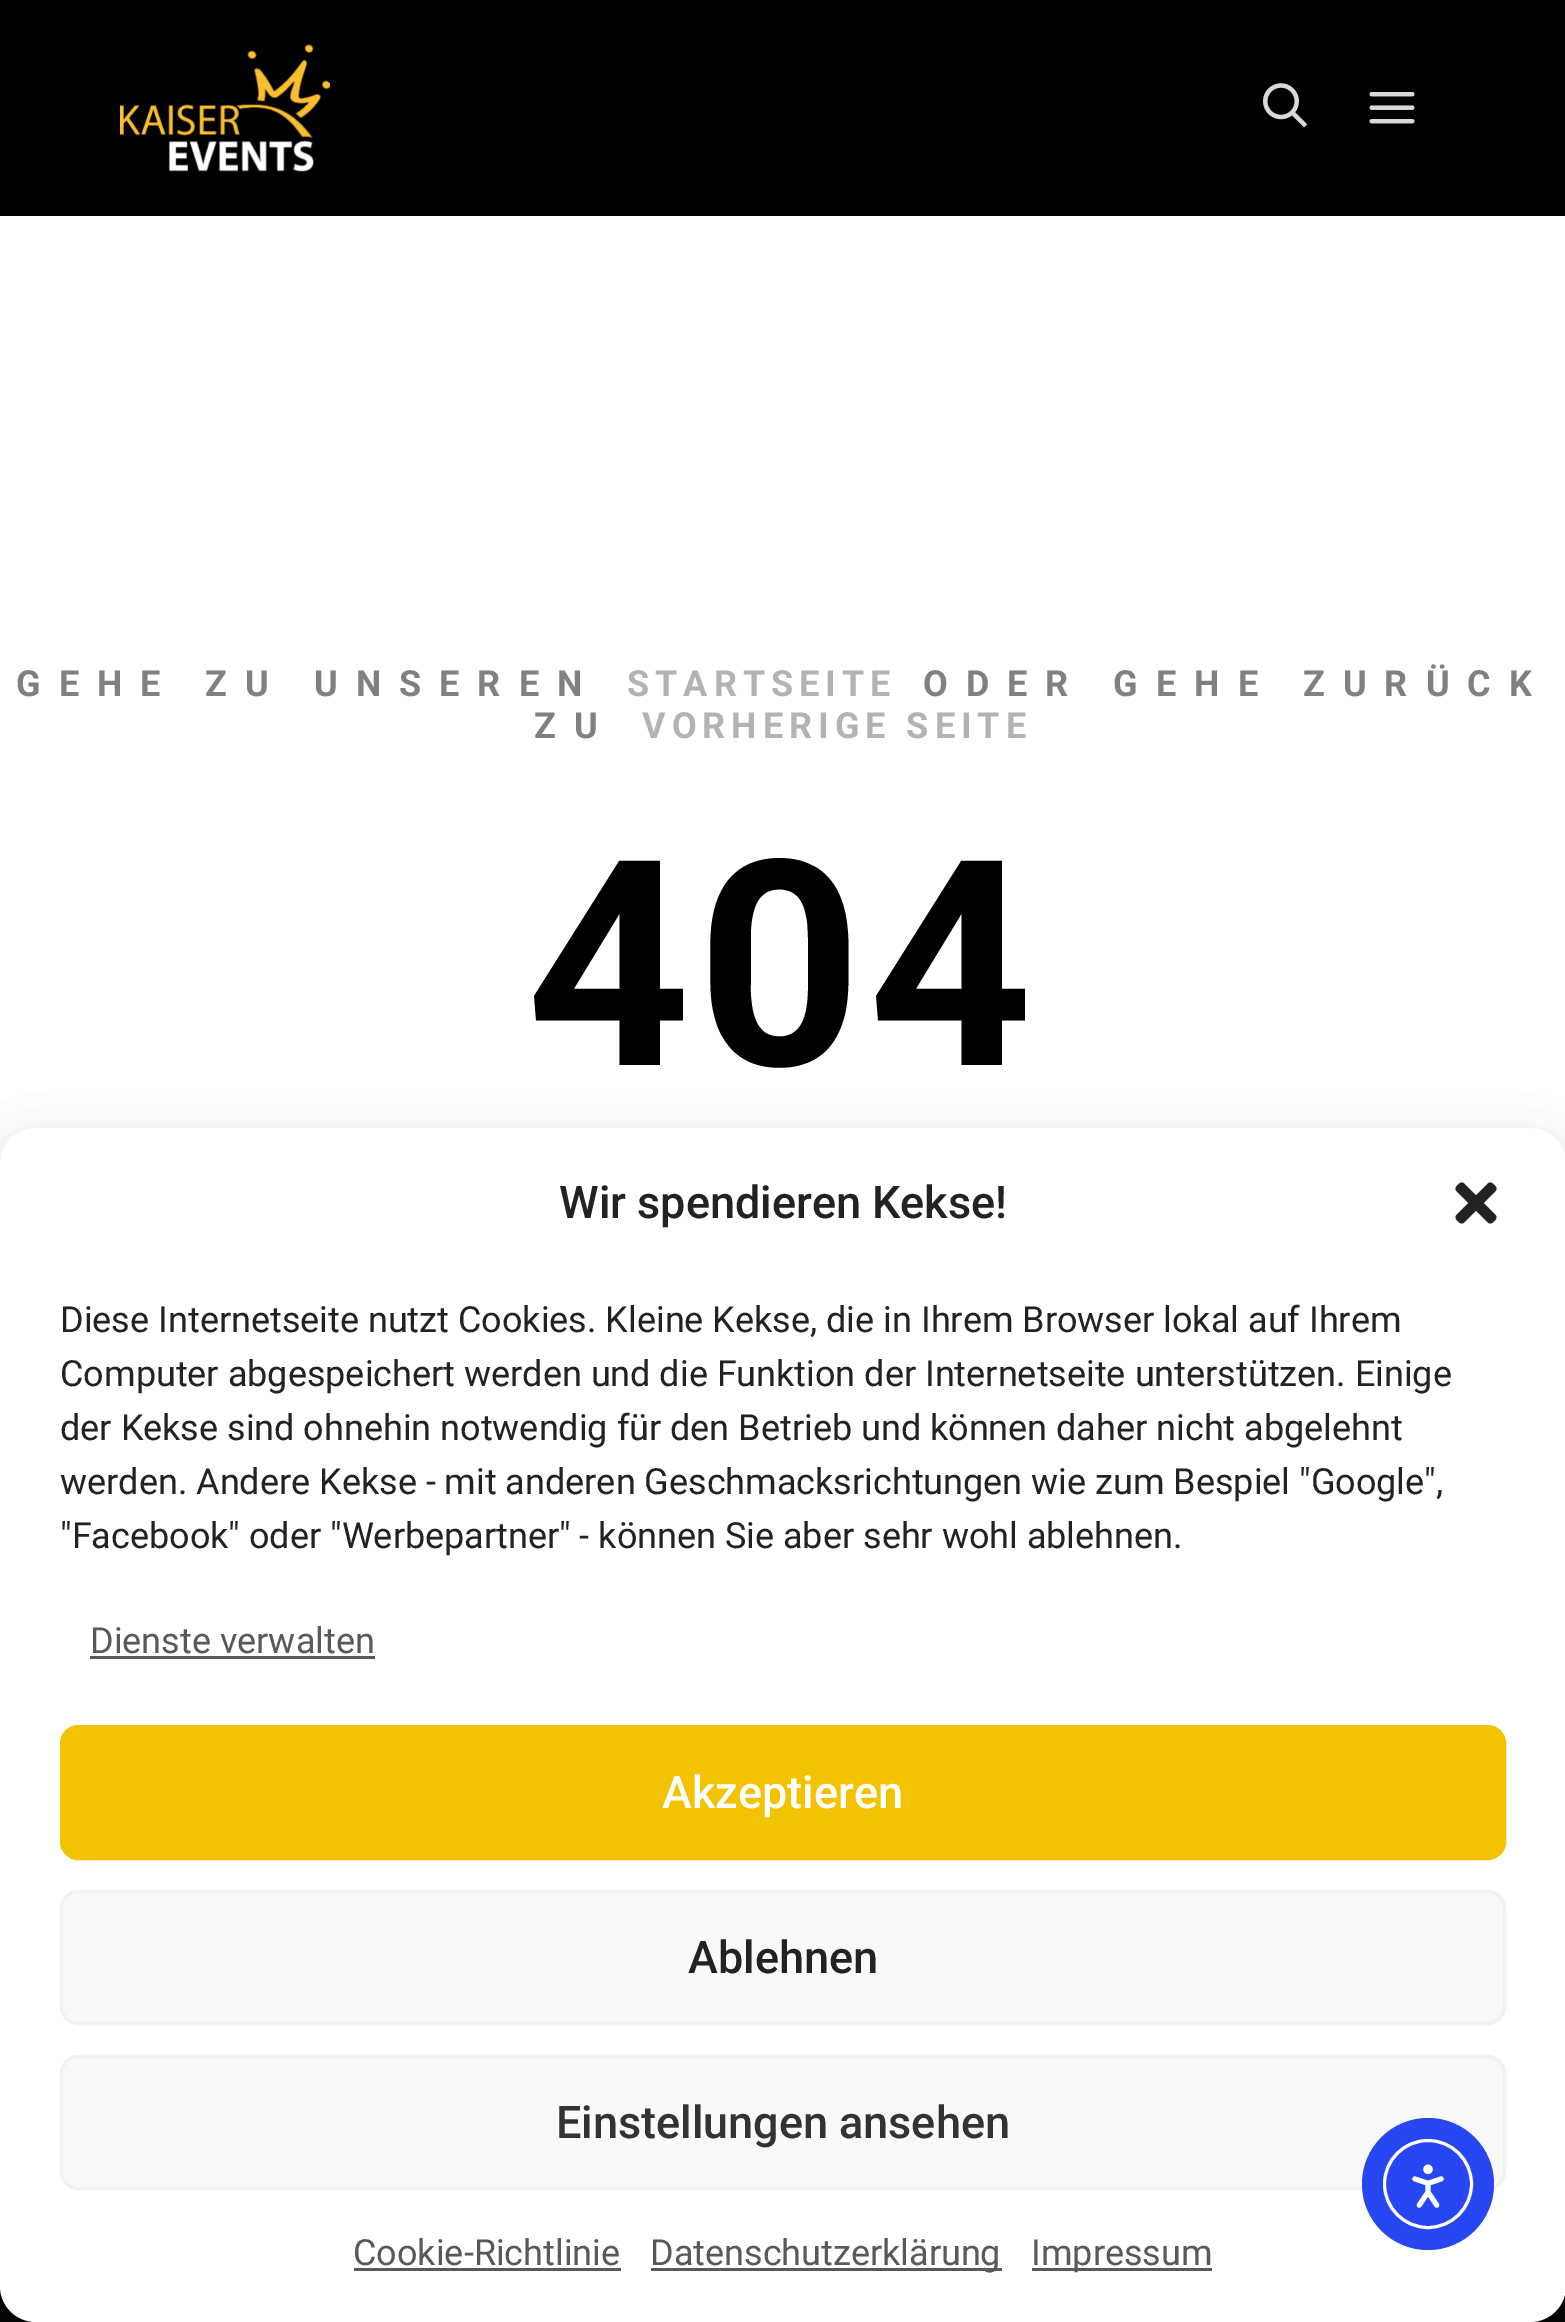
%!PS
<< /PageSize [1565 2322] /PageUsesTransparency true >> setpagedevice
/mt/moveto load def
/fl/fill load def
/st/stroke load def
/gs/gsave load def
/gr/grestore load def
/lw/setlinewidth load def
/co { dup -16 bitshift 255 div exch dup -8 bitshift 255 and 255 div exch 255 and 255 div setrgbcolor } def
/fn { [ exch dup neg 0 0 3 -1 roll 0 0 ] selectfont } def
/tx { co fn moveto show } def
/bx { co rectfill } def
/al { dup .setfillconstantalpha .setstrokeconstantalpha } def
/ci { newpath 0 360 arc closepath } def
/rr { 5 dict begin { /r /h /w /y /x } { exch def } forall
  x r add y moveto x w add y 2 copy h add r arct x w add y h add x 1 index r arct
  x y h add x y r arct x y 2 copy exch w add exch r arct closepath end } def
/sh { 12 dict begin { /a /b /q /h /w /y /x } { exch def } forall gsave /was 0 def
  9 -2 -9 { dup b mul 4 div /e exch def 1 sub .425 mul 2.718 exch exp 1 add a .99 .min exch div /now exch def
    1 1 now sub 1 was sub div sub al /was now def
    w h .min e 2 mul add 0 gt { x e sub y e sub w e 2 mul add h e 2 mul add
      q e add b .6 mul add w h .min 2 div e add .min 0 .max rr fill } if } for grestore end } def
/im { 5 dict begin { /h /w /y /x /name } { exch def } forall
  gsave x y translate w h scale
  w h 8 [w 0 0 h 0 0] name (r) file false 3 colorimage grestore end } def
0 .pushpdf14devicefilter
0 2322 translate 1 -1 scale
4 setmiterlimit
0 0 1565 2322 16#FFFFFF bx
0 0 1565 216 16#000000 bx
(media/1.raw) 120 44 210 128 im
(media/2.raw) 1263 83 45 45 im
(media/3.raw) 1369 92 46 32 im
0 2286 1565 36 16#040404 bx
16#000000 co
0 1146 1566 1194 36 9 .23 sh
0 1158 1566 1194 36 30 .19 sh
16#FFFFFF co
0 1128 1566 1194 36 rr fl
(media/4.raw) 1455 1182 42 42 im
90 1656 285 3 16#595959 bx
16#F3C200 co
61.5 1726.5 1443 132 16.5 rr gs fl gr
3 lw
st
16#F9F9F9 co
61.5 1891.5 1443 132 16.5 rr gs fl gr
16#F2F2F2 co
st
16#F9F9F9 co
61.5 2056.5 1443 132 16.5 rr gs fl gr
16#F2F2F2 co
st
354 2268 267 3 16#595959 bx
651 2268 351 3 16#595959 bx
1032 2268 180 3 16#595959 bx
16#2847F3 co
1428 2184 66 ci fl
16#FFFFFF co
1428 2184 43.5 ci st
(media/5.raw) 1412 2164 32 44 im
/Roboto-Bold 36 fn
16#808080 co
16 696 mt 18 0 (GEHE ZU UNSEREN) ashow
16#B3B3B3 co
627 696 mt 6 0 (STARTSEITE) ashow
16#808080 co
923 696 mt 18 0 (ODER GEHE ZURÜCK) ashow
534 738 mt 18 0 (ZU) ashow
16#B3B3B3 co
642 738 mt 6 0 (VORHERIGE SEITE) ashow
/Roboto-Bold 288 fn
16#000000 co
526 1065 mt 6 0 (404) ashow
(Wir spendieren Kekse!) 559 1218 /Roboto-Medium 45 16#222222 tx
(Diese Internetseite nutzt Cookies. Kleine Kekse, die in Ihrem Browser lokal auf Ihrem) 60 1332 /Roboto-Regular 36 16#222222 tx
(Computer abgespeichert werden und die Funktion der Internetseite unterstützen. Einige) 60 1386 /Roboto-Regular 36 16#222222 tx
(der Kekse sind ohnehin notwendig für den Betrieb und können daher nicht abgelehnt) 60 1440 /Roboto-Regular 36 16#222222 tx
(werden. Andere Kekse - mit anderen Geschmacksrichtungen wie zum Bespiel "Google",) 60 1494 /Roboto-Regular 36 16#222222 tx
("Facebook" oder "Werbepartner" - können Sie aber sehr wohl ablehnen.) 60 1548 /Roboto-Regular 36 16#222222 tx
(Dienste verwalten) 90 1653 /Roboto-Regular 36 16#595959 tx
(Akzeptieren) 662 1808 /Roboto-Medium 45 16#FFFFFF tx
(Ablehnen) 688 1973 /Roboto-Medium 45 16#222222 tx
(Einstellungen ansehen) 556 2138 /Roboto-Medium 45 16#333333 tx
(Cookie-Richtlinie) 353 2265 /Roboto-Regular 36 16#595959 tx
(Datenschutzerklärung) 650 2265 /Roboto-Regular 36 16#595959 tx
(Impressum) 1031 2265 /Roboto-Regular 36 16#595959 tx
.poppdf14devicefilter showpage
